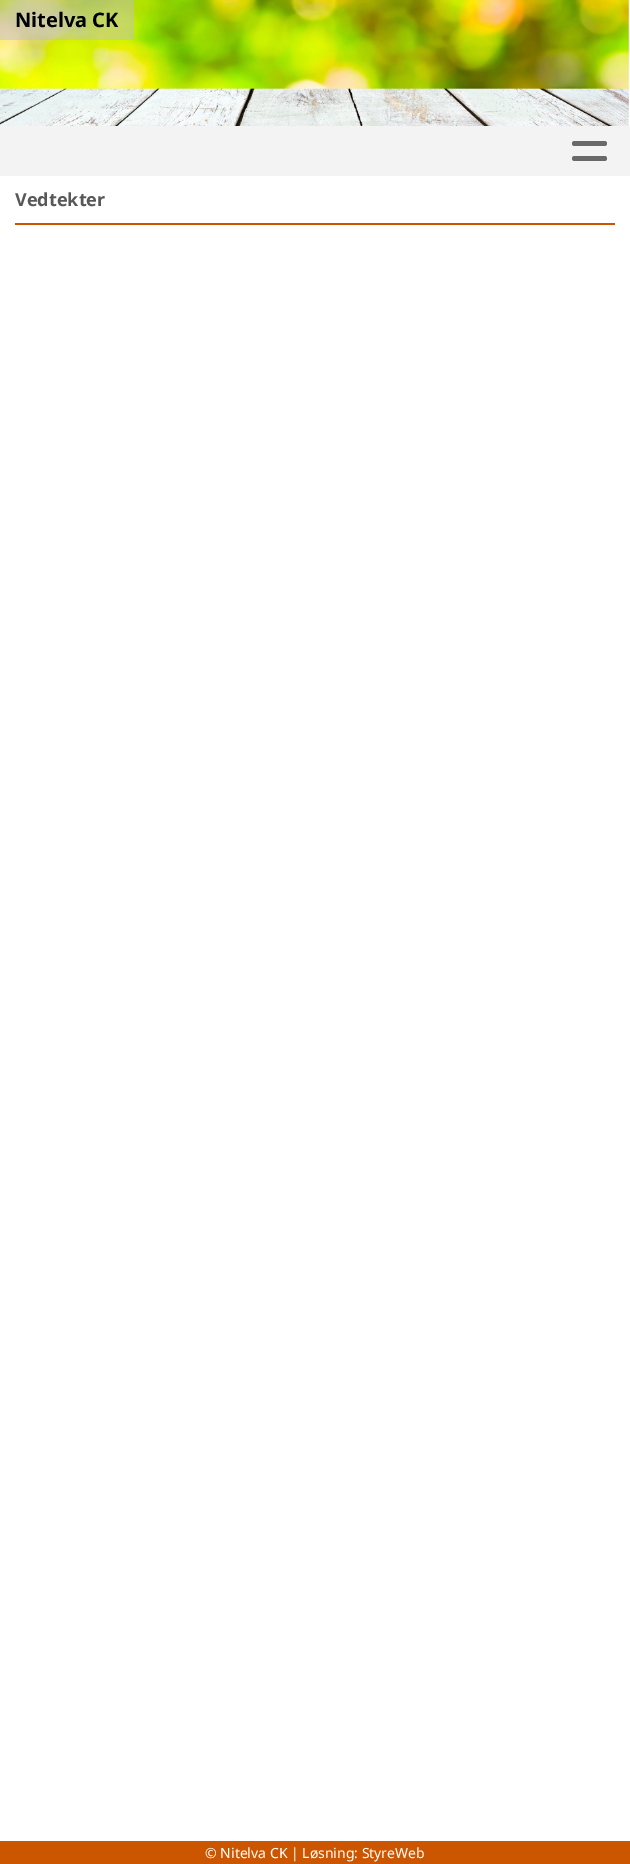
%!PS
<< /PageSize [630 1864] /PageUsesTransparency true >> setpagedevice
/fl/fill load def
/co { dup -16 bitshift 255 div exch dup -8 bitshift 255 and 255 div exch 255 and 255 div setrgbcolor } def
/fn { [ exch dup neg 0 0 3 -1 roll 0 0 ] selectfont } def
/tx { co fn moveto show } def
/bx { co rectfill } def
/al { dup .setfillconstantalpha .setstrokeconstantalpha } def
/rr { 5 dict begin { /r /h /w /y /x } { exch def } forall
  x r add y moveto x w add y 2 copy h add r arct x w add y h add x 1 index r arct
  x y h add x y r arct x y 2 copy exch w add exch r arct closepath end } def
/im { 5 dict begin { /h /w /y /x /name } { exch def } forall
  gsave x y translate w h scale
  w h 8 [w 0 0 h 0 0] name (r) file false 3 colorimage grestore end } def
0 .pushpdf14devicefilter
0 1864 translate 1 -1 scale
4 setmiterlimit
0 0 630 1864 16#FFFFFF bx
(media/1.raw) 0 0 629 126 im
0.5 al
0 0 134 40 16#BFBFBF bx
1 al
0 126 630 50 16#F3F3F3 bx
16#696969 co
572 141 35 5 2.5 rr fl
572 156 35 5 2.5 rr fl
15 223 600 2 16#CC5600 bx
0 1841 630 23 16#CC5600 bx
(Nitelva CK) 15 27 /NotoSans-Bold 20 16#000000 tx
(Vedtekter) 15 206 /NotoSans-Bold 18 16#585858 tx
(© Nitelva CK | Løsning: StyreWeb) 205 1858 /NotoSans-Regular 14 16#FFFFFF tx
.poppdf14devicefilter showpage
